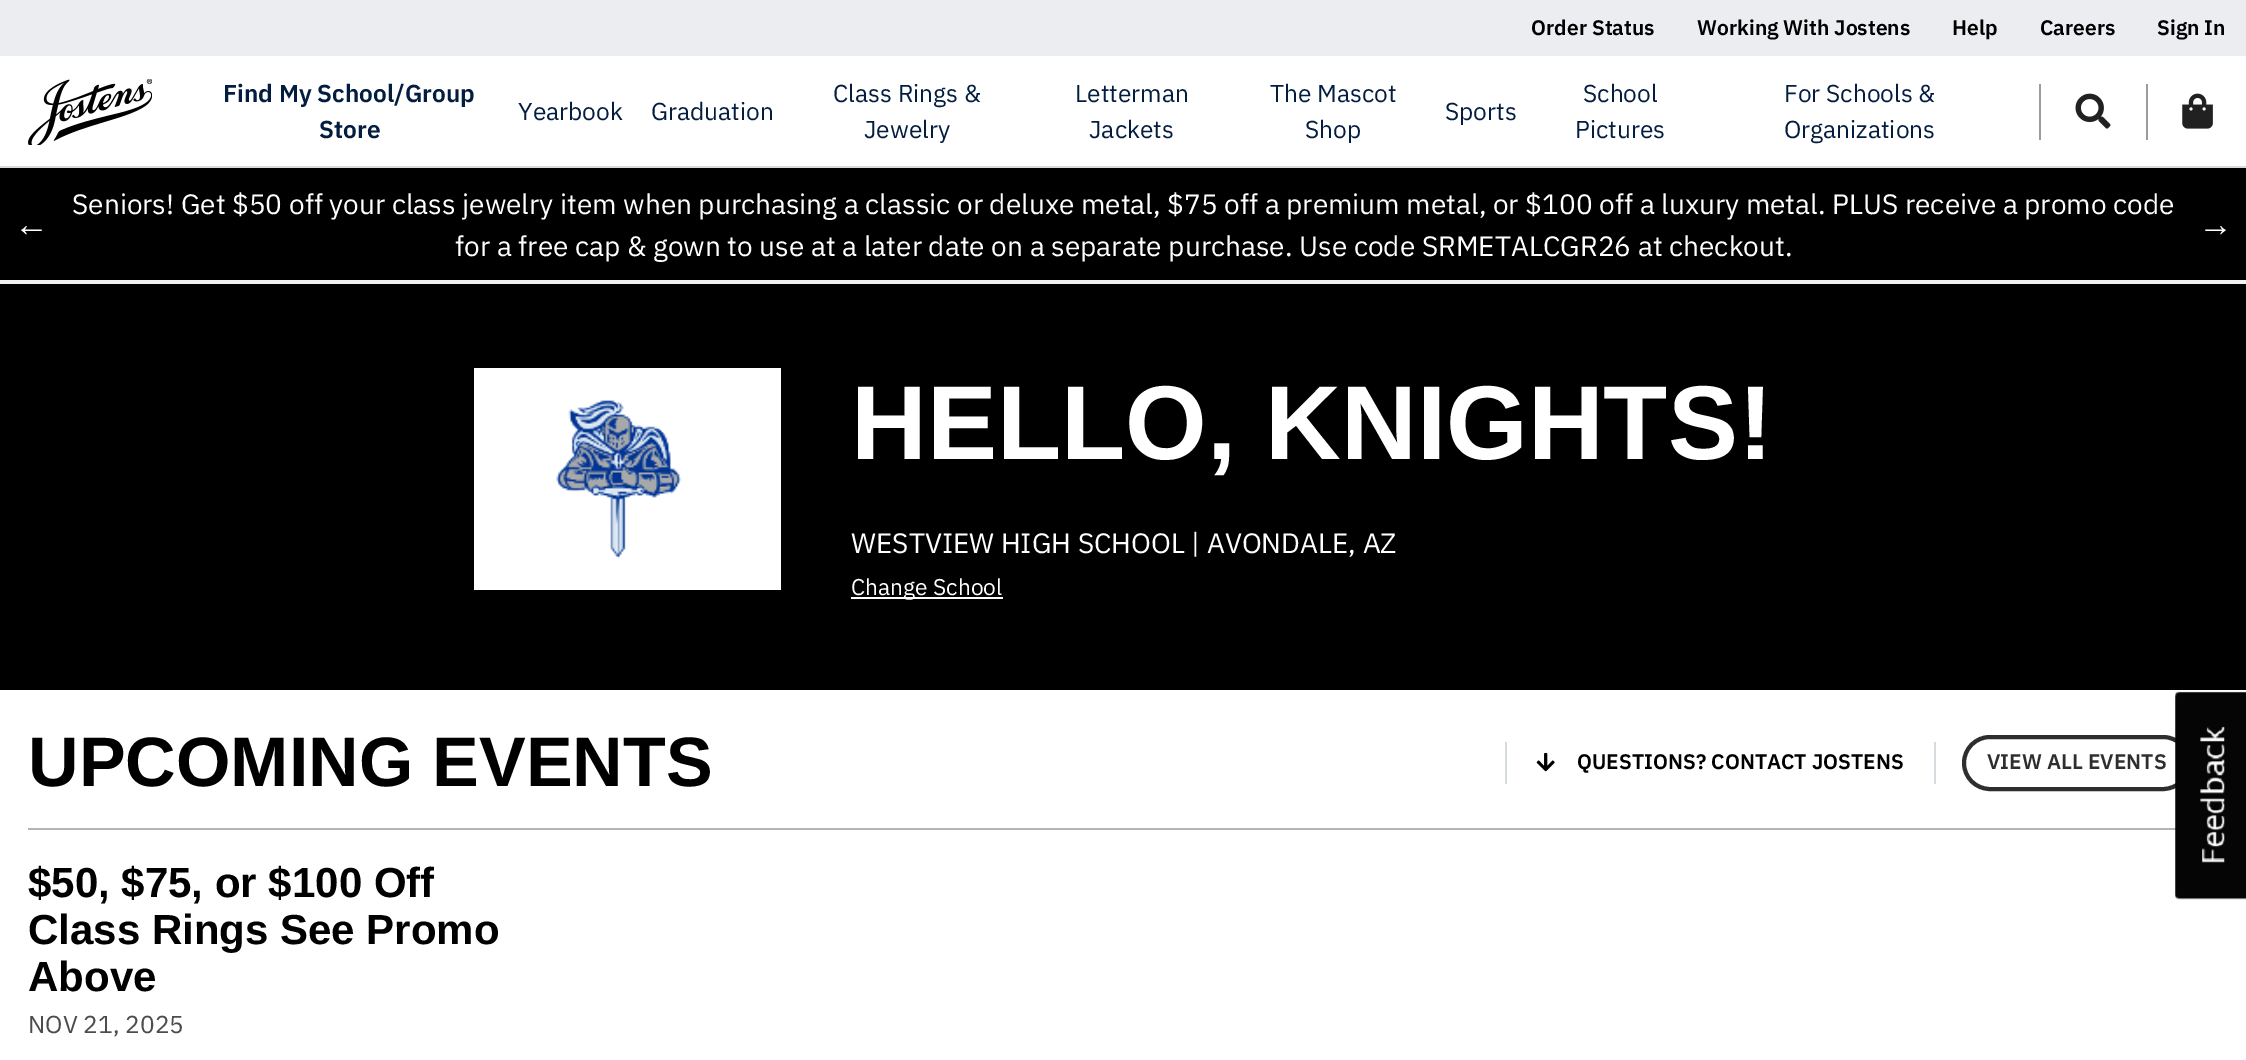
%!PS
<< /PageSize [2246 1060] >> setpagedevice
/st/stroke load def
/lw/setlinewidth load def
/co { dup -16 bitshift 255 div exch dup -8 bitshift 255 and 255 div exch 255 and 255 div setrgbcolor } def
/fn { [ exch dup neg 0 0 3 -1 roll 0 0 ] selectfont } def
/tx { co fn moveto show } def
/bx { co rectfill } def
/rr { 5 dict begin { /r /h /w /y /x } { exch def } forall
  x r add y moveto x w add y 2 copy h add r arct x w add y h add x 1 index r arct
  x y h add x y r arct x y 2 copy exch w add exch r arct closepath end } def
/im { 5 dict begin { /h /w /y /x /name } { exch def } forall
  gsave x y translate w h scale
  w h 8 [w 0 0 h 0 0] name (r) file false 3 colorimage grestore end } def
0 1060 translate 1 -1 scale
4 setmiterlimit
0 0 2246 1060 16#F2F2F2 bx
0 0 2246 56 16#EBEDF0 bx
0 56 2246 110 16#FFFFFF bx
0 166 2246 2 16#D6DBE0 bx
(media/1.raw) 28 79 124 66 im
2039 84 2 56 16#9C9C9C bx
(media/2.raw) 2075 93 36 36 im
2146 84 2 56 16#9C9C9C bx
(media/3.raw) 2182 93 31 36 im
0 168 2246 112 16#000000 bx
0 284 2246 406 16#000000 bx
474 368 307 222 16#FFFFFF bx
(media/4.raw) 556 400 126 159 im
851 597 152 2 16#FFFFFF bx
0 690 2246 370 16#FFFFFF bx
28 828 2148 2 16#B4B4B4 bx
1505 742 2 42 16#D6DBE0 bx
(media/5.raw) 1536 752 19 20 im
1934 742 2 42 16#D6DBE0 bx
16#2E2E2E co
4 lw
1964 737 225 52 26 rr st
(media/6.raw) 2175 691 71 209 im
(Order Status) 1531 35 /IBMPlexSans-SemiBold 21 16#000000 tx
(Working With Jostens) 1697 35 /IBMPlexSans-SemiBold 21 16#000000 tx
(Help) 1952 35 /IBMPlexSans-SemiBold 21 16#000000 tx
(Careers) 2040 35 /IBMPlexSans-SemiBold 21 16#000000 tx
(Sign In) 2157 35 /IBMPlexSans-SemiBold 21 16#000000 tx
(Find My School/Group) 223 102 /IBMPlexSans-SemiBold 24.5 16#031D40 tx
(Store) 319 138 /IBMPlexSans-SemiBold 24.5 16#031D40 tx
(Yearbook) 518 120 /IBMPlexSans-Regular 24.5 16#031D40 tx
(Graduation) 651 120 /IBMPlexSans-Regular 24.5 16#031D40 tx
(Class Rings &) 833 102 /IBMPlexSans-Regular 24.5 16#031D40 tx
(Jewelry) 864 138 /IBMPlexSans-Regular 24.5 16#031D40 tx
(Letterman) 1075 102 /IBMPlexSans-Regular 24.5 16#031D40 tx
(Jackets) 1089 138 /IBMPlexSans-Regular 24.5 16#031D40 tx
(The Mascot) 1270 102 /IBMPlexSans-Regular 24.5 16#031D40 tx
(Shop) 1305 138 /IBMPlexSans-Regular 24.5 16#031D40 tx
(Sports) 1445 120 /IBMPlexSans-Regular 24.5 16#031D40 tx
(School) 1583 102 /IBMPlexSans-Regular 24.5 16#031D40 tx
(Pictures) 1575 138 /IBMPlexSans-Regular 24.5 16#031D40 tx
(For Schools &) 1784 102 /IBMPlexSans-Regular 24.5 16#031D40 tx
(Organizations) 1784 138 /IBMPlexSans-Regular 24.5 16#031D40 tx
(←) 14 236 /LiberationSans-Regular 35 16#FFFFFF tx
(Seniors! Get $50 off your class jewelry item when purchasing a classic or deluxe metal, $75 off a premium metal, or $100 off a luxury metal. PLUS receive a promo code) 72 214 /IBMPlexSans-Regular 28 16#FFFFFF tx
(for a free cap & gown to use at a later date on a separate purchase. Use code SRMETALCGR26 at checkout.) 455 256 /IBMPlexSans-Regular 28 16#FFFFFF tx
(→) 2198 236 /LiberationSans-Regular 35 16#FFFFFF tx
(HELLO, KNIGHTS!) 851 459 /LiberationSans-Bold 105 16#FFFFFF tx
(WESTVIEW HIGH SCHOOL | AVONDALE, AZ) 851 553 /IBMPlexSans-Regular 28 16#FFFFFF tx
(Change School) 851 595 /IBMPlexSans-Regular 22.75 16#FFFFFF tx
(UPCOMING EVENTS) 28 786 /LiberationSans-Bold 70 16#000000 tx
(QUESTIONS? CONTACT JOSTENS) 1577 769 /IBMPlexSans-SemiBold 21 16#000000 tx
(VIEW ALL EVENTS) 1987 769 /IBMPlexSans-SemiBold 21 16#2E2E2E tx
($50, $75, or $100 Off) 28 897 /LiberationSans-Bold 42 16#000000 tx
(Class Rings See Promo) 28 944 /LiberationSans-Bold 42 16#000000 tx
(Above) 28 991 /LiberationSans-Bold 42 16#000000 tx
(NOV 21, 2025) 28 1033 /IBMPlexSans-Regular 24.5 16#4C4C4C tx
showpage
